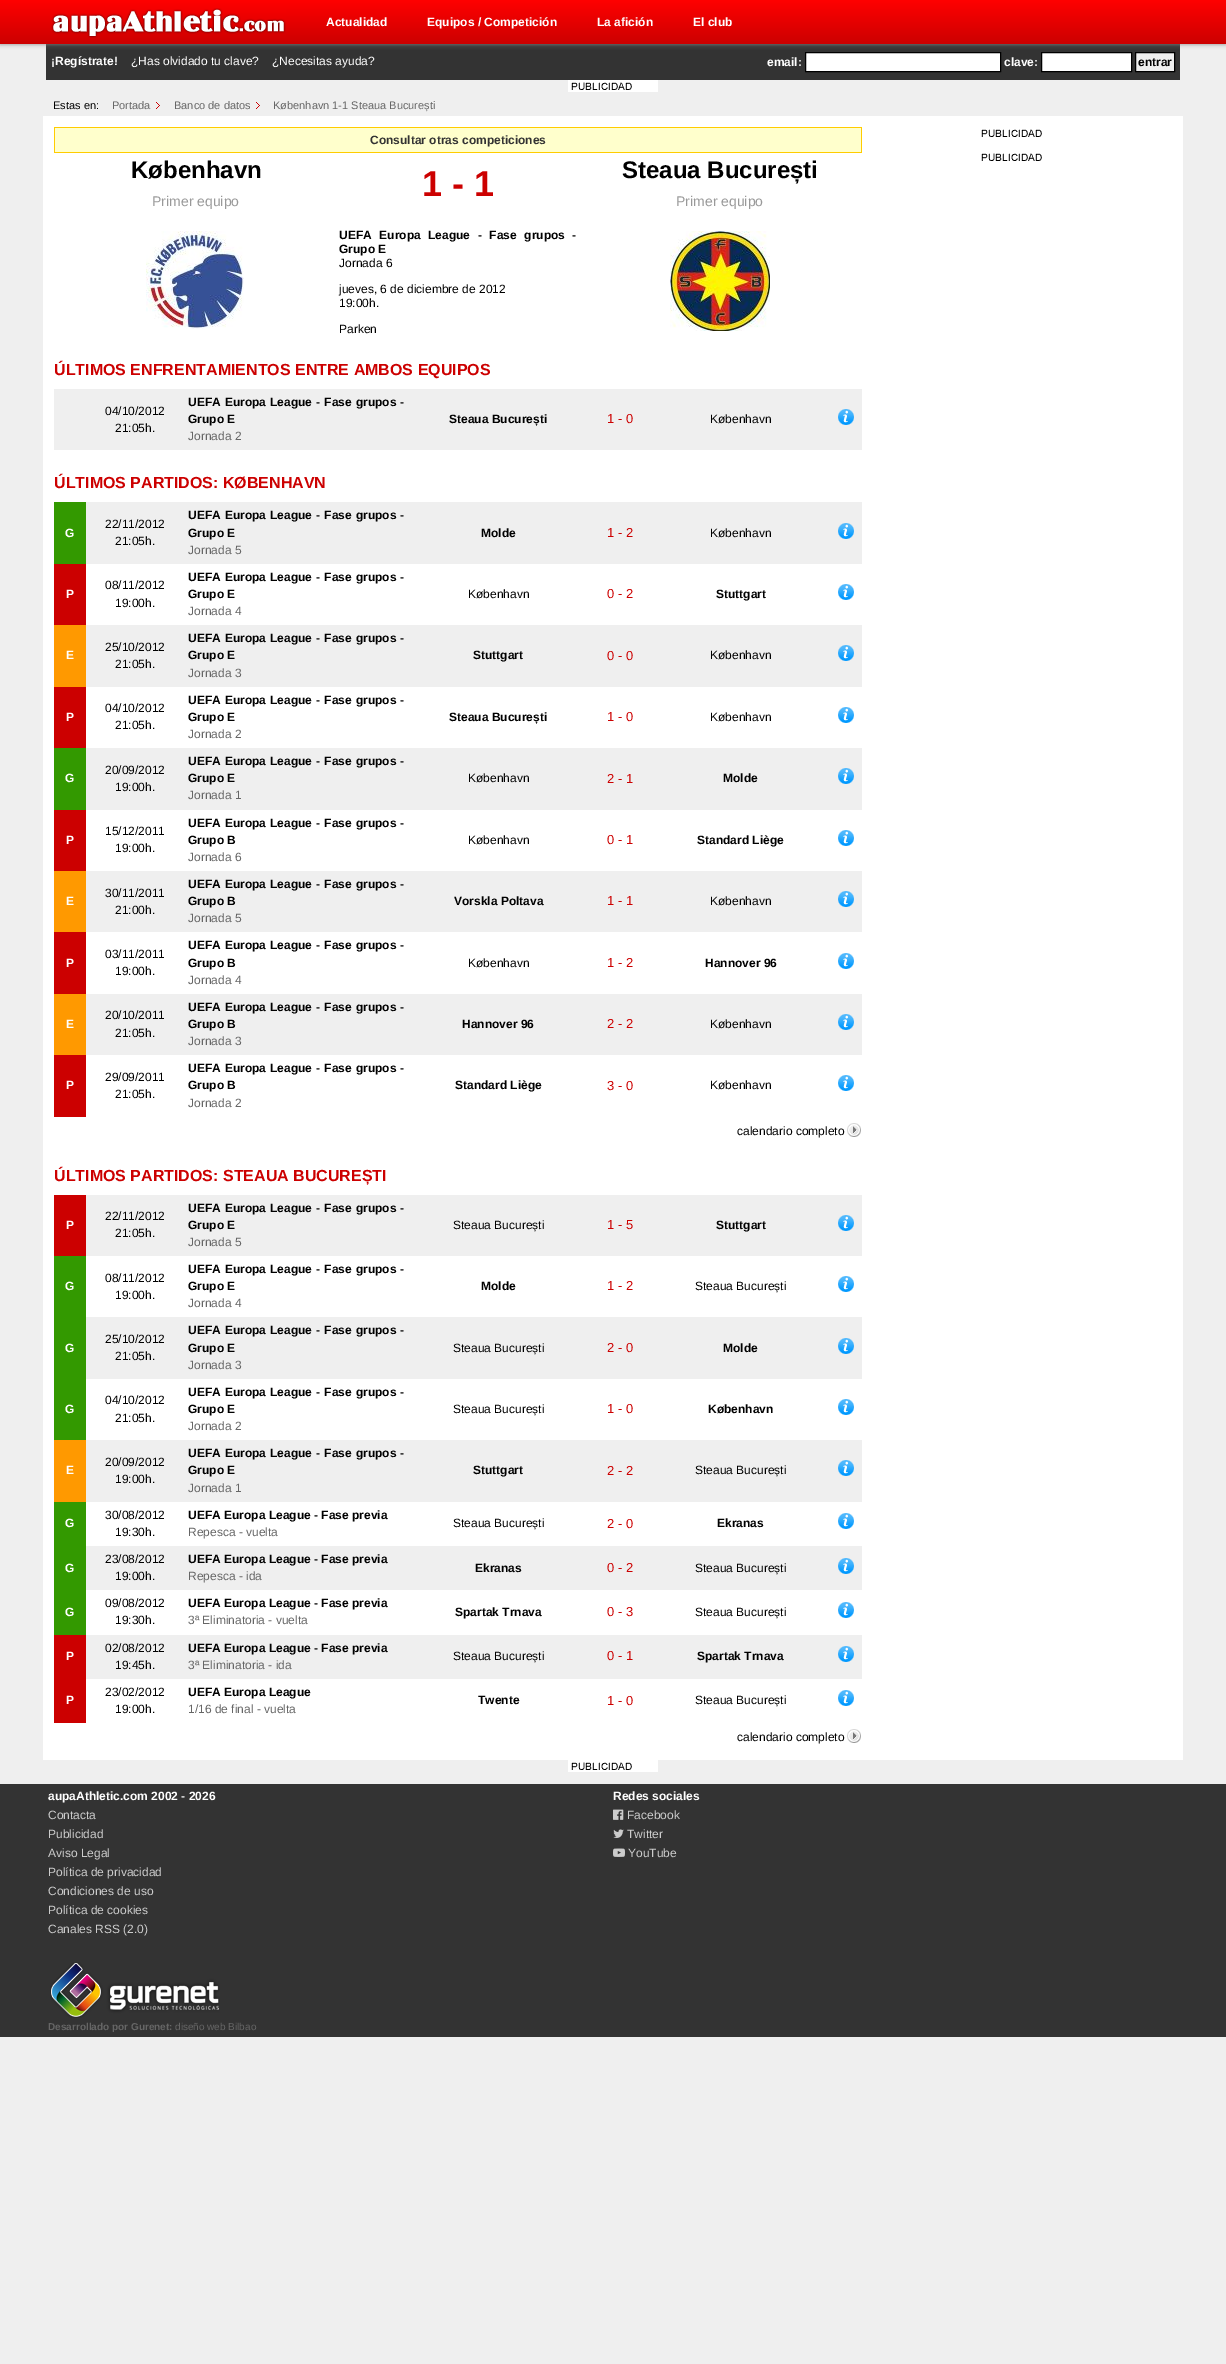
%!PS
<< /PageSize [1226 2364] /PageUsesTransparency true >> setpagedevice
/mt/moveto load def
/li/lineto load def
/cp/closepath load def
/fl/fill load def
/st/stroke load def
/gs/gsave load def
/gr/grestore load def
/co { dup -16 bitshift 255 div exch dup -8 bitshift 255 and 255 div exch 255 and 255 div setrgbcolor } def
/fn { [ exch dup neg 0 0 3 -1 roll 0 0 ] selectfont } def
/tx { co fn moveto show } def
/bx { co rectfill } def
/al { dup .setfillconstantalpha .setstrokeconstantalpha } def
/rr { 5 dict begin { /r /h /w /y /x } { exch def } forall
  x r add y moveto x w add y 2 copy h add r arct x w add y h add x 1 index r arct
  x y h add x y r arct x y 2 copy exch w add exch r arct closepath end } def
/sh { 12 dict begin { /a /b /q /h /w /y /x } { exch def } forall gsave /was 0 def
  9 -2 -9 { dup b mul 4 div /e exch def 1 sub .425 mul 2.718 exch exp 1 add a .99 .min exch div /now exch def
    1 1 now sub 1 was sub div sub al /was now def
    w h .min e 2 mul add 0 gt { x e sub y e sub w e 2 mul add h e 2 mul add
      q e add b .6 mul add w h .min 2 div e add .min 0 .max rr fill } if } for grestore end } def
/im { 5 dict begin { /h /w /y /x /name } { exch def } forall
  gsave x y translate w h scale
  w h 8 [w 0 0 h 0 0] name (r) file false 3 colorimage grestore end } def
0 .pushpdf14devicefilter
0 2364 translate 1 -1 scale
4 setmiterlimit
0 0 1226 2364 16#EFEFEF bx
46 44 1134 36 16#333333 bx
16#FFFFFF co
805.5 52.5 mt 1000.5 52.5 li 1000.5 71.5 li 805.5 71.5 li cp gs fl gr
16#000000 co
st
16#FFFFFF co
1041.5 52.5 mt 1131.5 52.5 li 1131.5 71.5 li 1041.5 71.5 li cp gs fl gr
16#000000 co
st
16#EFEFEF co
1135.5 52.5 mt 1174.5 52.5 li 1174.5 71.5 li 1135.5 71.5 li cp gs fl gr
16#000000 co
st
16#888888 co
0 0 1226 44 0 2.5 1 sh
gs 0 0 mt 1226 0 li 1226 44 li 0 44 li cp clip newpath
<< /ShadingType 2 /ColorSpace /DeviceRGB /Coords [613 0 613 44] /Extend [true true] /Function << /FunctionType 2 /Domain [0 1] /C0 [1 0 0] /C1 [.8 0 0] /N 1 >> >> shfill gr
(media/1.raw) 51 8 235 30 im
(media/2.raw) 568 80 90 12 im
(media/3.raw) 156 102 4 7 im
(media/3.raw) 256 102 4 7 im
43 116 1140 1644 16#FFFFFF bx
54 127 808 26 16#FFCC00 bx
55 128 806 24 16#FFFFCC bx
(media/4.raw) 146 231 98 98 im
(media/5.raw) 670 231 100 100 im
54 389 808 61 16#EFEFEF bx
(media/6.raw) 838 409 16 16 im
86 502 776 62 16#EFEFEF bx
54 502 32 62 16#339900 bx
(media/6.raw) 838 523 16 16 im
54 564 32 61 16#CC0000 bx
(media/7.raw) 838 584 16 16 im
86 625 776 62 16#EFEFEF bx
54 625 32 62 16#FF9900 bx
(media/6.raw) 838 645 16 16 im
54 687 32 61 16#CC0000 bx
(media/7.raw) 838 707 16 16 im
86 748 776 62 16#EFEFEF bx
54 748 32 62 16#339900 bx
(media/6.raw) 838 768 16 16 im
54 810 32 61 16#CC0000 bx
(media/7.raw) 838 830 16 16 im
86 871 776 61 16#EFEFEF bx
54 871 32 61 16#FF9900 bx
(media/6.raw) 838 891 16 16 im
54 932 32 62 16#CC0000 bx
(media/7.raw) 838 953 16 16 im
86 994 776 61 16#EFEFEF bx
54 994 32 61 16#FF9900 bx
(media/6.raw) 838 1014 16 16 im
54 1055 32 62 16#CC0000 bx
(media/7.raw) 838 1075 16 16 im
(media/8.raw) 847 1123 14 14 im
86 1195 776 61 16#EFEFEF bx
54 1195 32 61 16#CC0000 bx
(media/6.raw) 838 1215 16 16 im
54 1256 32 184 16#339900 bx
(media/7.raw) 838 1276 16 16 im
86 1317 776 62 16#EFEFEF bx
(media/6.raw) 838 1338 16 16 im
(media/7.raw) 838 1399 16 16 im
86 1440 776 62 16#EFEFEF bx
54 1440 32 62 16#FF9900 bx
(media/6.raw) 838 1460 16 16 im
54 1502 32 133 16#339900 bx
(media/7.raw) 838 1513 16 16 im
86 1546 776 44 16#EFEFEF bx
(media/6.raw) 838 1558 16 16 im
(media/7.raw) 838 1602 16 16 im
86 1635 776 44 16#EFEFEF bx
54 1635 32 88 16#CC0000 bx
(media/6.raw) 838 1646 16 16 im
(media/7.raw) 838 1690 16 16 im
(media/8.raw) 847 1729 14 14 im
(media/9.raw) 981 129 61 8 im
(media/9.raw) 981 153 61 8 im
(media/2.raw) 568 1760 90 12 im
0 1784 1226 253 16#333333 bx
(media/10.raw) 613 1809 11 11 im
(media/11.raw) 613 1829 11 9 im
(media/12.raw) 613 1848 12 9 im
(media/13.raw) 50 1962 170 56 im
(Actualidad) 326 26 /LiberationSans-Bold 12 16#FFFFFF tx
(Equipos / Competición) 427 26 /LiberationSans-Bold 12 16#FFFFFF tx
(La afición) 597 26 /LiberationSans-Bold 12 16#FFFFFF tx
(El club) 693 26 /LiberationSans-Bold 12 16#FFFFFF tx
(¡Regístrate!) 51 65 /LiberationSans-Bold 12 16#FFFFFF tx
(¿Has olvidado tu clave?) 131 65 /LiberationSans-Regular 12 16#FFFFFF tx
(¿Necesitas ayuda?) 272 65 /LiberationSans-Regular 12 16#FFFFFF tx
(email:) 767 66 /LiberationSans-Bold 12 16#FFFFFF tx
(clave:) 1004 66 /LiberationSans-Bold 12 16#FFFFFF tx
(entrar) 1138 66 /LiberationSans-Bold 12 16#000000 tx
(Estas en:) 53 109 /LiberationSans-Regular 11 16#000000 tx
(Portada) 112 109 /LiberationSans-Regular 11 16#666666 tx
(Banco de datos) 174 109 /LiberationSans-Regular 11 16#666666 tx
(København 1-1 Steaua București) 273 109 /LiberationSans-Regular 11 16#666666 tx
(Consultar otras competiciones) 370 144 /LiberationSans-Bold 12 16#333333 tx
(København) 131 178 /LiberationSans-Bold 24 16#000000 tx
(Primer equipo) 152 206 /LiberationSans-Regular 14 16#999999 tx
(1 - 1) 422 196 /LiberationSans-Bold 36 16#CC0000 tx
(Steaua București) 622 178 /LiberationSans-Bold 24 16#000000 tx
(Primer equipo) 676 206 /LiberationSans-Regular 14 16#999999 tx
/LiberationSans-Bold 12 fn
16#000000 co
339 239 mt 4.25 0 32 (UEFA Europa League - Fase grupos -) widthshow
(Grupo E) 339 253 /LiberationSans-Bold 12 16#000000 tx
(Jornada 6) 339 267 /LiberationSans-Regular 12 16#000000 tx
(jueves, 6 de diciembre de 2012) 339 293 /LiberationSans-Regular 12 16#000000 tx
(19:00h.) 339 307 /LiberationSans-Regular 12 16#000000 tx
(Parken) 339 333 /LiberationSans-Regular 12 16#000000 tx
(ÚLTIMOS ENFRENTAMIENTOS ENTRE AMBOS EQUIPOS) 54 375 /LiberationSans-Bold 16 16#CC0000 tx
(04/10/2012) 105 415 /LiberationSans-Regular 12 16#000000 tx
(21:05h.) 115 432 /LiberationSans-Regular 12 16#000000 tx
/LiberationSans-Bold 12 fn
188 406 mt .75 0 32 (UEFA Europa League - Fase grupos -) widthshow
(Grupo E) 188 423 /LiberationSans-Bold 12 16#000000 tx
(Jornada 2) 188 440 /LiberationSans-Regular 12 16#666666 tx
(Steaua București) 449 423 /LiberationSans-Bold 12 16#000000 tx
(1 - 0) 607 423 /LiberationSans-Regular 13 16#CC0000 tx
(København) 710 423 /LiberationSans-Regular 12 16#000000 tx
(ÚLTIMOS PARTIDOS: KØBENHAVN) 54 488 /LiberationSans-Bold 16 16#CC0000 tx
(G) 65 537 /LiberationSans-Bold 12 16#FFFFFF tx
(22/11/2012) 105 528 /LiberationSans-Regular 12 16#000000 tx
(21:05h.) 115 545 /LiberationSans-Regular 12 16#000000 tx
/LiberationSans-Bold 12 fn
188 519 mt .75 0 32 (UEFA Europa League - Fase grupos -) widthshow
(Grupo E) 188 537 /LiberationSans-Bold 12 16#000000 tx
(Jornada 5) 188 554 /LiberationSans-Regular 12 16#666666 tx
(Molde) 481 537 /LiberationSans-Bold 12 16#000000 tx
(1 - 2) 607 537 /LiberationSans-Regular 13 16#CC0000 tx
(København) 710 537 /LiberationSans-Regular 12 16#000000 tx
(P) 66 598 /LiberationSans-Bold 12 16#FFFFFF tx
(08/11/2012) 105 589 /LiberationSans-Regular 12 16#000000 tx
(19:00h.) 115 607 /LiberationSans-Regular 12 16#000000 tx
/LiberationSans-Bold 12 fn
188 581 mt .75 0 32 (UEFA Europa League - Fase grupos -) widthshow
(Grupo E) 188 598 /LiberationSans-Bold 12 16#000000 tx
(Jornada 4) 188 615 /LiberationSans-Regular 12 16#666666 tx
(København) 468 598 /LiberationSans-Regular 12 16#000000 tx
(0 - 2) 607 598 /LiberationSans-Regular 13 16#CC0000 tx
(Stuttgart) 716 598 /LiberationSans-Bold 12 16#000000 tx
(E) 66 659 /LiberationSans-Bold 12 16#FFFFFF tx
(25/10/2012) 105 651 /LiberationSans-Regular 12 16#000000 tx
(21:05h.) 115 668 /LiberationSans-Regular 12 16#000000 tx
/LiberationSans-Bold 12 fn
188 642 mt .75 0 32 (UEFA Europa League - Fase grupos -) widthshow
(Grupo E) 188 659 /LiberationSans-Bold 12 16#000000 tx
(Jornada 3) 188 677 /LiberationSans-Regular 12 16#666666 tx
(Stuttgart) 473 659 /LiberationSans-Bold 12 16#000000 tx
(0 - 0) 607 660 /LiberationSans-Regular 13 16#CC0000 tx
(København) 710 659 /LiberationSans-Regular 12 16#000000 tx
(P) 66 721 /LiberationSans-Bold 12 16#FFFFFF tx
(04/10/2012) 105 712 /LiberationSans-Regular 12 16#000000 tx
(21:05h.) 115 729 /LiberationSans-Regular 12 16#000000 tx
/LiberationSans-Bold 12 fn
188 704 mt .75 0 32 (UEFA Europa League - Fase grupos -) widthshow
(Grupo E) 188 721 /LiberationSans-Bold 12 16#000000 tx
(Jornada 2) 188 738 /LiberationSans-Regular 12 16#666666 tx
(Steaua București) 449 721 /LiberationSans-Bold 12 16#000000 tx
(1 - 0) 607 721 /LiberationSans-Regular 13 16#CC0000 tx
(København) 710 721 /LiberationSans-Regular 12 16#000000 tx
(G) 65 782 /LiberationSans-Bold 12 16#FFFFFF tx
(20/09/2012) 105 774 /LiberationSans-Regular 12 16#000000 tx
(19:00h.) 115 791 /LiberationSans-Regular 12 16#000000 tx
/LiberationSans-Bold 12 fn
188 765 mt .75 0 32 (UEFA Europa League - Fase grupos -) widthshow
(Grupo E) 188 782 /LiberationSans-Bold 12 16#000000 tx
(Jornada 1) 188 799 /LiberationSans-Regular 12 16#666666 tx
(København) 468 782 /LiberationSans-Regular 12 16#000000 tx
(2 - 1) 607 783 /LiberationSans-Regular 13 16#CC0000 tx
(Molde) 723 782 /LiberationSans-Bold 12 16#000000 tx
(P) 66 844 /LiberationSans-Bold 12 16#FFFFFF tx
(15/12/2011) 105 835 /LiberationSans-Regular 12 16#000000 tx
(19:00h.) 115 852 /LiberationSans-Regular 12 16#000000 tx
/LiberationSans-Bold 12 fn
188 827 mt .75 0 32 (UEFA Europa League - Fase grupos -) widthshow
(Grupo B) 188 844 /LiberationSans-Bold 12 16#000000 tx
(Jornada 6) 188 861 /LiberationSans-Regular 12 16#666666 tx
(København) 468 844 /LiberationSans-Regular 12 16#000000 tx
(0 - 1) 607 844 /LiberationSans-Regular 13 16#CC0000 tx
(Standard Liège) 697 844 /LiberationSans-Bold 12 16#000000 tx
(E) 66 905 /LiberationSans-Bold 12 16#FFFFFF tx
(30/11/2011) 105 897 /LiberationSans-Regular 12 16#000000 tx
(21:00h.) 115 914 /LiberationSans-Regular 12 16#000000 tx
/LiberationSans-Bold 12 fn
188 888 mt .75 0 32 (UEFA Europa League - Fase grupos -) widthshow
(Grupo B) 188 905 /LiberationSans-Bold 12 16#000000 tx
(Jornada 5) 188 922 /LiberationSans-Regular 12 16#666666 tx
(Vorskla Poltava) 454 905 /LiberationSans-Bold 12 16#000000 tx
(1 - 1) 607 905 /LiberationSans-Regular 13 16#CC0000 tx
(København) 710 905 /LiberationSans-Regular 12 16#000000 tx
(P) 66 967 /LiberationSans-Bold 12 16#FFFFFF tx
(03/11/2011) 105 958 /LiberationSans-Regular 12 16#000000 tx
(19:00h.) 115 975 /LiberationSans-Regular 12 16#000000 tx
/LiberationSans-Bold 12 fn
188 949 mt .75 0 32 (UEFA Europa League - Fase grupos -) widthshow
(Grupo B) 188 967 /LiberationSans-Bold 12 16#000000 tx
(Jornada 4) 188 984 /LiberationSans-Regular 12 16#666666 tx
(København) 468 967 /LiberationSans-Regular 12 16#000000 tx
(1 - 2) 607 967 /LiberationSans-Regular 13 16#CC0000 tx
(Hannover 96) 705 967 /LiberationSans-Bold 12 16#000000 tx
(E) 66 1028 /LiberationSans-Bold 12 16#FFFFFF tx
(20/10/2011) 105 1019 /LiberationSans-Regular 12 16#000000 tx
(21:05h.) 115 1037 /LiberationSans-Regular 12 16#000000 tx
/LiberationSans-Bold 12 fn
188 1011 mt .75 0 32 (UEFA Europa League - Fase grupos -) widthshow
(Grupo B) 188 1028 /LiberationSans-Bold 12 16#000000 tx
(Jornada 3) 188 1045 /LiberationSans-Regular 12 16#666666 tx
(Hannover 96) 462 1028 /LiberationSans-Bold 12 16#000000 tx
(2 - 2) 607 1028 /LiberationSans-Regular 13 16#CC0000 tx
(København) 710 1028 /LiberationSans-Regular 12 16#000000 tx
(P) 66 1089 /LiberationSans-Bold 12 16#FFFFFF tx
(29/09/2011) 105 1081 /LiberationSans-Regular 12 16#000000 tx
(21:05h.) 115 1098 /LiberationSans-Regular 12 16#000000 tx
/LiberationSans-Bold 12 fn
188 1072 mt .75 0 32 (UEFA Europa League - Fase grupos -) widthshow
(Grupo B) 188 1089 /LiberationSans-Bold 12 16#000000 tx
(Jornada 2) 188 1107 /LiberationSans-Regular 12 16#666666 tx
(Standard Liège) 455 1089 /LiberationSans-Bold 12 16#000000 tx
(3 - 0) 607 1090 /LiberationSans-Regular 13 16#CC0000 tx
(København) 710 1089 /LiberationSans-Regular 12 16#000000 tx
(calendario completo) 737 1135 /LiberationSans-Regular 12 16#000000 tx
(ÚLTIMOS PARTIDOS: STEAUA BUCUREȘTI) 54 1181 /LiberationSans-Bold 16 16#CC0000 tx
(P) 66 1229 /LiberationSans-Bold 12 16#FFFFFF tx
(22/11/2012) 105 1220 /LiberationSans-Regular 12 16#000000 tx
(21:05h.) 115 1237 /LiberationSans-Regular 12 16#000000 tx
/LiberationSans-Bold 12 fn
188 1212 mt .75 0 32 (UEFA Europa League - Fase grupos -) widthshow
(Grupo E) 188 1229 /LiberationSans-Bold 12 16#000000 tx
(Jornada 5) 188 1246 /LiberationSans-Regular 12 16#666666 tx
(Steaua București) 453 1229 /LiberationSans-Regular 12 16#000000 tx
(1 - 5) 607 1229 /LiberationSans-Regular 13 16#CC0000 tx
(Stuttgart) 716 1229 /LiberationSans-Bold 12 16#000000 tx
(G) 65 1290 /LiberationSans-Bold 12 16#FFFFFF tx
(08/11/2012) 105 1282 /LiberationSans-Regular 12 16#000000 tx
(19:00h.) 115 1299 /LiberationSans-Regular 12 16#000000 tx
/LiberationSans-Bold 12 fn
188 1273 mt .75 0 32 (UEFA Europa League - Fase grupos -) widthshow
(Grupo E) 188 1290 /LiberationSans-Bold 12 16#000000 tx
(Jornada 4) 188 1307 /LiberationSans-Regular 12 16#666666 tx
(Molde) 481 1290 /LiberationSans-Bold 12 16#000000 tx
(1 - 2) 607 1290 /LiberationSans-Regular 13 16#CC0000 tx
(Steaua București) 695 1290 /LiberationSans-Regular 12 16#000000 tx
(G) 65 1352 /LiberationSans-Bold 12 16#FFFFFF tx
(25/10/2012) 105 1343 /LiberationSans-Regular 12 16#000000 tx
(21:05h.) 115 1360 /LiberationSans-Regular 12 16#000000 tx
/LiberationSans-Bold 12 fn
188 1334 mt .75 0 32 (UEFA Europa League - Fase grupos -) widthshow
(Grupo E) 188 1352 /LiberationSans-Bold 12 16#000000 tx
(Jornada 3) 188 1369 /LiberationSans-Regular 12 16#666666 tx
(Steaua București) 453 1352 /LiberationSans-Regular 12 16#000000 tx
(2 - 0) 607 1352 /LiberationSans-Regular 13 16#CC0000 tx
(Molde) 723 1352 /LiberationSans-Bold 12 16#000000 tx
(G) 65 1413 /LiberationSans-Bold 12 16#FFFFFF tx
(04/10/2012) 105 1404 /LiberationSans-Regular 12 16#000000 tx
(21:05h.) 115 1422 /LiberationSans-Regular 12 16#000000 tx
/LiberationSans-Bold 12 fn
188 1396 mt .75 0 32 (UEFA Europa League - Fase grupos -) widthshow
(Grupo E) 188 1413 /LiberationSans-Bold 12 16#000000 tx
(Jornada 2) 188 1430 /LiberationSans-Regular 12 16#666666 tx
(Steaua București) 453 1413 /LiberationSans-Regular 12 16#000000 tx
(1 - 0) 607 1413 /LiberationSans-Regular 13 16#CC0000 tx
(København) 708 1413 /LiberationSans-Bold 12 16#000000 tx
(E) 66 1474 /LiberationSans-Bold 12 16#FFFFFF tx
(20/09/2012) 105 1466 /LiberationSans-Regular 12 16#000000 tx
(19:00h.) 115 1483 /LiberationSans-Regular 12 16#000000 tx
/LiberationSans-Bold 12 fn
188 1457 mt .75 0 32 (UEFA Europa League - Fase grupos -) widthshow
(Grupo E) 188 1474 /LiberationSans-Bold 12 16#000000 tx
(Jornada 1) 188 1492 /LiberationSans-Regular 12 16#666666 tx
(Stuttgart) 473 1474 /LiberationSans-Bold 12 16#000000 tx
(2 - 2) 607 1475 /LiberationSans-Regular 13 16#CC0000 tx
(Steaua București) 695 1474 /LiberationSans-Regular 12 16#000000 tx
(G) 65 1527 /LiberationSans-Bold 12 16#FFFFFF tx
(30/08/2012) 105 1519 /LiberationSans-Regular 12 16#000000 tx
(19:30h.) 115 1536 /LiberationSans-Regular 12 16#000000 tx
(UEFA Europa League - Fase previa) 188 1519 /LiberationSans-Bold 12 16#000000 tx
(Repesca - vuelta) 188 1536 /LiberationSans-Regular 12 16#666666 tx
(Steaua București) 453 1527 /LiberationSans-Regular 12 16#000000 tx
(2 - 0) 607 1528 /LiberationSans-Regular 13 16#CC0000 tx
(Ekranas) 717 1527 /LiberationSans-Bold 12 16#000000 tx
(G) 65 1572 /LiberationSans-Bold 12 16#FFFFFF tx
(23/08/2012) 105 1563 /LiberationSans-Regular 12 16#000000 tx
(19:00h.) 115 1580 /LiberationSans-Regular 12 16#000000 tx
(UEFA Europa League - Fase previa) 188 1563 /LiberationSans-Bold 12 16#000000 tx
(Repesca - ida) 188 1580 /LiberationSans-Regular 12 16#666666 tx
(Ekranas) 475 1572 /LiberationSans-Bold 12 16#000000 tx
(0 - 2) 607 1572 /LiberationSans-Regular 13 16#CC0000 tx
(Steaua București) 695 1572 /LiberationSans-Regular 12 16#000000 tx
(G) 65 1616 /LiberationSans-Bold 12 16#FFFFFF tx
(09/08/2012) 105 1607 /LiberationSans-Regular 12 16#000000 tx
(19:30h.) 115 1624 /LiberationSans-Regular 12 16#000000 tx
(UEFA Europa League - Fase previa) 188 1607 /LiberationSans-Bold 12 16#000000 tx
(3ª Eliminatoria - vuelta) 188 1624 /LiberationSans-Regular 12 16#666666 tx
(Spartak Trnava) 455 1616 /LiberationSans-Bold 12 16#000000 tx
(0 - 3) 607 1616 /LiberationSans-Regular 13 16#CC0000 tx
(Steaua București) 695 1616 /LiberationSans-Regular 12 16#000000 tx
(P) 66 1660 /LiberationSans-Bold 12 16#FFFFFF tx
(02/08/2012) 105 1652 /LiberationSans-Regular 12 16#000000 tx
(19:45h.) 115 1669 /LiberationSans-Regular 12 16#000000 tx
(UEFA Europa League - Fase previa) 188 1652 /LiberationSans-Bold 12 16#000000 tx
(3ª Eliminatoria - ida) 188 1669 /LiberationSans-Regular 12 16#666666 tx
(Steaua București) 453 1660 /LiberationSans-Regular 12 16#000000 tx
(0 - 1) 607 1660 /LiberationSans-Regular 13 16#CC0000 tx
(Spartak Trnava) 697 1660 /LiberationSans-Bold 12 16#000000 tx
(P) 66 1704 /LiberationSans-Bold 12 16#FFFFFF tx
(23/02/2012) 105 1696 /LiberationSans-Regular 12 16#000000 tx
(19:00h.) 115 1713 /LiberationSans-Regular 12 16#000000 tx
(UEFA Europa League) 188 1696 /LiberationSans-Bold 12 16#000000 tx
(1/16 de final - vuelta) 188 1713 /LiberationSans-Regular 12 16#666666 tx
(Twente) 478 1704 /LiberationSans-Bold 12 16#000000 tx
(1 - 0) 607 1705 /LiberationSans-Regular 13 16#CC0000 tx
(Steaua București) 695 1704 /LiberationSans-Regular 12 16#000000 tx
(calendario completo) 737 1741 /LiberationSans-Regular 12 16#000000 tx
(aupaAthletic.com 2002 - 2026) 48 1800 /LiberationSans-Bold 12 16#FFFFFF tx
(Contacta) 48 1819 /LiberationSans-Regular 12 16#CCCCCC tx
(Publicidad) 48 1838 /LiberationSans-Regular 12 16#CCCCCC tx
(Aviso Legal) 48 1857 /LiberationSans-Regular 12 16#CCCCCC tx
(Política de privacidad) 48 1876 /LiberationSans-Regular 12 16#CCCCCC tx
(Condiciones de uso) 48 1895 /LiberationSans-Regular 12 16#CCCCCC tx
(Política de cookies) 48 1914 /LiberationSans-Regular 12 16#CCCCCC tx
(Canales RSS \(2.0\)) 48 1933 /LiberationSans-Regular 12 16#CCCCCC tx
(Redes sociales) 613 1800 /LiberationSans-Bold 12 16#FFFFFF tx
(Facebook) 627 1819 /LiberationSans-Regular 12 16#CCCCCC tx
(Twitter) 627 1838 /LiberationSans-Regular 12 16#CCCCCC tx
(YouTube) 628 1857 /LiberationSans-Regular 12 16#CCCCCC tx
(Desarrollado por Gurenet:) 48 2030 /LiberationSans-Bold 10 16#666666 tx
(diseño web Bilbao) 175 2030 /LiberationSans-Regular 10 16#666666 tx
.poppdf14devicefilter showpage
